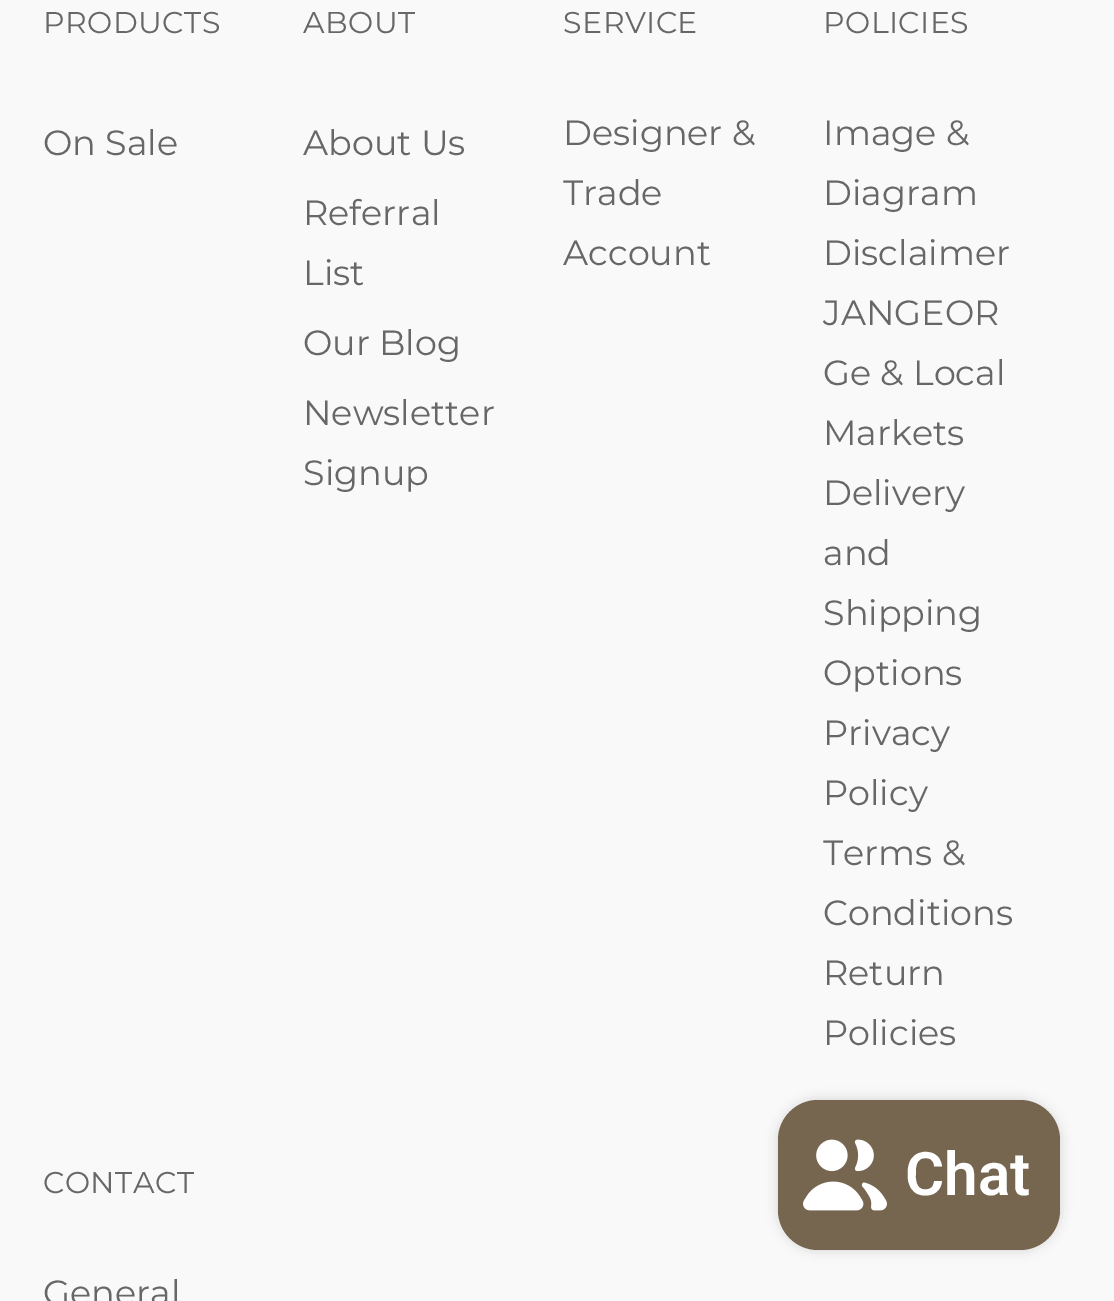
%!PS
<< /PageSize [1114 1301] /PageUsesTransparency true >> setpagedevice
/mt/moveto load def
/fl/fill load def
/gs/gsave load def
/gr/grestore load def
/co { dup -16 bitshift 255 div exch dup -8 bitshift 255 and 255 div exch 255 and 255 div setrgbcolor } def
/fn { [ exch dup neg 0 0 3 -1 roll 0 0 ] selectfont } def
/tx { co fn moveto show } def
/bx { co rectfill } def
/al { dup .setfillconstantalpha .setstrokeconstantalpha } def
/rr { 5 dict begin { /r /h /w /y /x } { exch def } forall
  x r add y moveto x w add y 2 copy h add r arct x w add y h add x 1 index r arct
  x y h add x y r arct x y 2 copy exch w add exch r arct closepath end } def
/sh { 12 dict begin { /a /b /q /h /w /y /x } { exch def } forall gsave /was 0 def
  9 -2 -9 { dup b mul 4 div /e exch def 1 sub .425 mul 2.718 exch exp 1 add a .99 .min exch div /now exch def
    1 1 now sub 1 was sub div sub al /was now def
    w h .min e 2 mul add 0 gt { x e sub y e sub w e 2 mul add h e 2 mul add
      q e add b .6 mul add w h .min 2 div e add .min 0 .max rr fill } if } for grestore end } def
/im { 5 dict begin { /h /w /y /x /name } { exch def } forall
  gsave x y translate w h scale
  w h 8 [w 0 0 h 0 0] name (r) file false 3 colorimage grestore end } def
0 .pushpdf14devicefilter
0 1301 translate 1 -1 scale
4 setmiterlimit
0 0 1114 1301 16#F9F9F9 bx
16#000000 co
778 1100 282 150 40 6 .15 sh
16#766650 co
778 1100 282 150 40 rr fl
(media/1.raw) 803 1139 84 72 im
/Montserrat-Regular 30 fn
16#676767 co
43 33 mt .5 0 (PRODUCTS) ashow
(On Sale) 43 155 /Montserrat-Regular 35 16#676767 tx
/Montserrat-Regular 30 fn
303 33 mt .5 0 (ABOUT) ashow
(About Us) 303 155 /Montserrat-Regular 35 16#676767 tx
(Referral) 303 225 /Montserrat-Regular 35 16#676767 tx
(List) 303 285 /Montserrat-Regular 35 16#676767 tx
(Our Blog) 303 355 /Montserrat-Regular 35 16#676767 tx
(Newsletter) 303 425 /Montserrat-Regular 35 16#676767 tx
(Signup) 303 485 /Montserrat-Regular 35 16#676767 tx
/Montserrat-Regular 30 fn
563 33 mt .5 0 (SERVICE) ashow
(Designer &) 563 145 /Montserrat-Regular 35 16#676767 tx
gs
563 103 200 180 rectclip
(Trade) 563 205 /Montserrat-Regular 35 16#676767 tx
gr
(Account) 563 265 /Montserrat-Regular 35 16#676767 tx
/Montserrat-Regular 30 fn
823 33 mt .5 0 (POLICIES) ashow
(Image &) 823 145 /Montserrat-Regular 35 16#676767 tx
(Diagram) 823 205 /Montserrat-Regular 35 16#676767 tx
(Disclaimer) 823 265 /Montserrat-Regular 35 16#676767 tx
(JANGEOR) 823 325 /Montserrat-Regular 35 16#676767 tx
(Ge & Local) 823 385 /Montserrat-Regular 35 16#676767 tx
(Markets) 823 445 /Montserrat-Regular 35 16#676767 tx
(Delivery) 823 505 /Montserrat-Regular 35 16#676767 tx
(and) 823 565 /Montserrat-Regular 35 16#676767 tx
(Shipping) 823 625 /Montserrat-Regular 35 16#676767 tx
(Options) 823 685 /Montserrat-Regular 35 16#676767 tx
(Privacy) 823 745 /Montserrat-Regular 35 16#676767 tx
(Policy) 823 805 /Montserrat-Regular 35 16#676767 tx
gs
823 823 200 120 rectclip
(Terms &) 823 865 /Montserrat-Regular 35 16#676767 tx
gr
(Conditions) 823 925 /Montserrat-Regular 35 16#676767 tx
(Return) 823 985 /Montserrat-Regular 35 16#676767 tx
(Policies) 823 1045 /Montserrat-Regular 35 16#676767 tx
/Montserrat-Regular 30 fn
43 1193 mt .5 0 (CONTACT) ashow
(General) 43 1305 /Montserrat-Regular 35 16#676767 tx
(Chat) 905 1195 /Roboto-SemiBold 60 16#FFFFFF tx
.poppdf14devicefilter showpage
